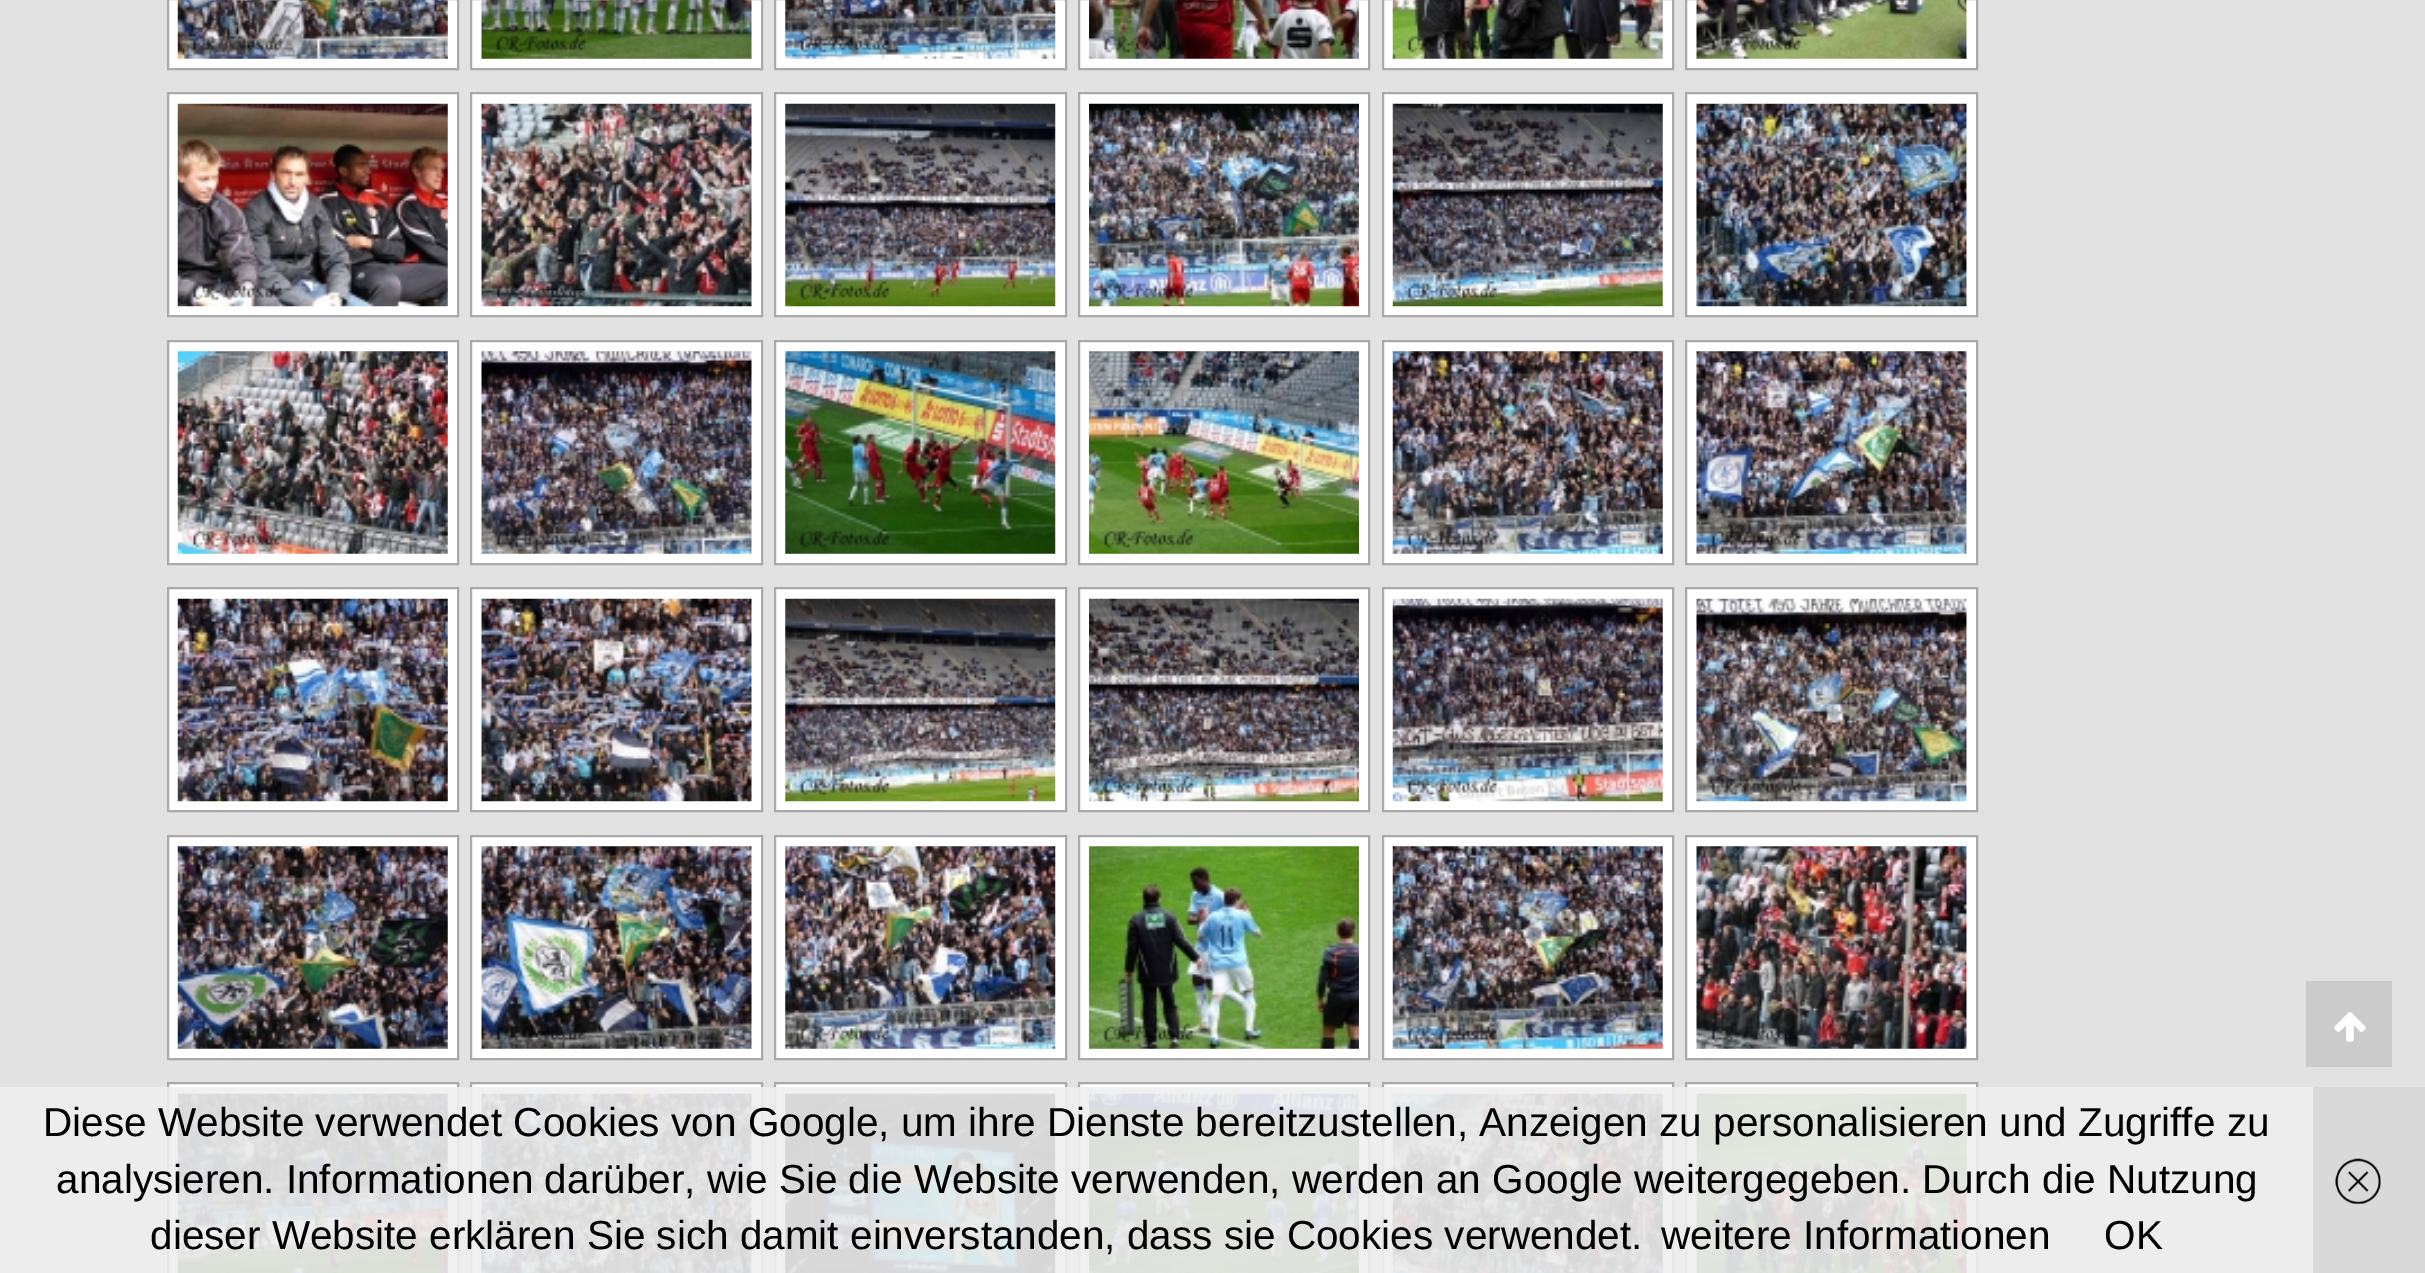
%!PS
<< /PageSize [2425 1273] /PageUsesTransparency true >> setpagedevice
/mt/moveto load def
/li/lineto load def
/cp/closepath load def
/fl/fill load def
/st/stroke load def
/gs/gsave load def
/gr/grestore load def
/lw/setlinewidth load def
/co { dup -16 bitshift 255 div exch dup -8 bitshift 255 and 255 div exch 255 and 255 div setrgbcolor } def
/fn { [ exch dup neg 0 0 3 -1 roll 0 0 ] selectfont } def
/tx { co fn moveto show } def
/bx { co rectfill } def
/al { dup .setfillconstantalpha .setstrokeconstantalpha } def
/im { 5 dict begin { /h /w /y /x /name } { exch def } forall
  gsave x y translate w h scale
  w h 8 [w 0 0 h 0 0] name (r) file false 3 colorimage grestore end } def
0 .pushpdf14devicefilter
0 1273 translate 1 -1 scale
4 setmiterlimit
0 0 2425 1273 16#E2E2E2 bx
16#FFFFFF co
168 -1 mt 458 -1 li 458 69 li 168 69 li cp gs fl gr
16#A9A9A9 co
2 lw
st
(media/1.raw) 177 0 271 59 im
16#FFFFFF co
471 -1 mt 762 -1 li 762 69 li 471 69 li cp gs fl gr
16#A9A9A9 co
st
(media/2.raw) 481 0 271 59 im
16#FFFFFF co
775 -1 mt 1066 -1 li 1066 69 li 775 69 li cp gs fl gr
16#A9A9A9 co
st
(media/3.raw) 785 0 271 59 im
16#FFFFFF co
1079 -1 mt 1369 -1 li 1369 69 li 1079 69 li cp gs fl gr
16#A9A9A9 co
st
(media/4.raw) 1089 0 270 59 im
16#FFFFFF co
1383 -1 mt 1673 -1 li 1673 69 li 1383 69 li cp gs fl gr
16#A9A9A9 co
st
(media/5.raw) 1392 0 271 59 im
16#FFFFFF co
1686 -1 mt 1977 -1 li 1977 69 li 1686 69 li cp gs fl gr
16#A9A9A9 co
st
(media/6.raw) 1696 0 271 59 im
16#FFFFFF co
168 93 mt 458 93 li 458 316 li 168 316 li cp gs fl gr
16#A9A9A9 co
st
(media/7.raw) 177 103 271 204 im
16#FFFFFF co
471 93 mt 762 93 li 762 316 li 471 316 li cp gs fl gr
16#A9A9A9 co
st
(media/8.raw) 481 103 271 204 im
16#FFFFFF co
775 93 mt 1066 93 li 1066 316 li 775 316 li cp gs fl gr
16#A9A9A9 co
st
(media/9.raw) 785 103 271 204 im
16#FFFFFF co
1079 93 mt 1369 93 li 1369 316 li 1079 316 li cp gs fl gr
16#A9A9A9 co
st
(media/10.raw) 1089 103 270 204 im
16#FFFFFF co
1383 93 mt 1673 93 li 1673 316 li 1383 316 li cp gs fl gr
16#A9A9A9 co
st
(media/11.raw) 1392 103 271 204 im
16#FFFFFF co
1686 93 mt 1977 93 li 1977 316 li 1686 316 li cp gs fl gr
16#A9A9A9 co
st
(media/12.raw) 1696 103 271 204 im
16#FFFFFF co
168 341 mt 458 341 li 458 564 li 168 564 li cp gs fl gr
16#A9A9A9 co
st
(media/13.raw) 177 351 271 203 im
16#FFFFFF co
471 341 mt 762 341 li 762 564 li 471 564 li cp gs fl gr
16#A9A9A9 co
st
(media/14.raw) 481 351 271 203 im
16#FFFFFF co
775 341 mt 1066 341 li 1066 564 li 775 564 li cp gs fl gr
16#A9A9A9 co
st
(media/15.raw) 785 351 271 203 im
16#FFFFFF co
1079 341 mt 1369 341 li 1369 564 li 1079 564 li cp gs fl gr
16#A9A9A9 co
st
(media/16.raw) 1089 351 270 203 im
16#FFFFFF co
1383 341 mt 1673 341 li 1673 564 li 1383 564 li cp gs fl gr
16#A9A9A9 co
st
(media/17.raw) 1392 351 271 203 im
16#FFFFFF co
1686 341 mt 1977 341 li 1977 564 li 1686 564 li cp gs fl gr
16#A9A9A9 co
st
(media/18.raw) 1696 351 271 203 im
16#FFFFFF co
168 588 mt 458 588 li 458 811 li 168 811 li cp gs fl gr
16#A9A9A9 co
st
(media/19.raw) 177 598 271 204 im
16#FFFFFF co
471 588 mt 762 588 li 762 811 li 471 811 li cp gs fl gr
16#A9A9A9 co
st
(media/20.raw) 481 598 271 204 im
16#FFFFFF co
775 588 mt 1066 588 li 1066 811 li 775 811 li cp gs fl gr
16#A9A9A9 co
st
(media/21.raw) 785 598 271 204 im
16#FFFFFF co
1079 588 mt 1369 588 li 1369 811 li 1079 811 li cp gs fl gr
16#A9A9A9 co
st
(media/22.raw) 1089 598 270 204 im
16#FFFFFF co
1383 588 mt 1673 588 li 1673 811 li 1383 811 li cp gs fl gr
16#A9A9A9 co
st
(media/23.raw) 1392 598 271 204 im
16#FFFFFF co
1686 588 mt 1977 588 li 1977 811 li 1686 811 li cp gs fl gr
16#A9A9A9 co
st
(media/24.raw) 1696 598 271 204 im
16#FFFFFF co
168 836 mt 458 836 li 458 1059 li 168 1059 li cp gs fl gr
16#A9A9A9 co
st
(media/25.raw) 177 846 271 203 im
16#FFFFFF co
471 836 mt 762 836 li 762 1059 li 471 1059 li cp gs fl gr
16#A9A9A9 co
st
(media/26.raw) 481 846 271 203 im
16#FFFFFF co
775 836 mt 1066 836 li 1066 1059 li 775 1059 li cp gs fl gr
16#A9A9A9 co
st
(media/27.raw) 785 846 271 203 im
16#FFFFFF co
1079 836 mt 1369 836 li 1369 1059 li 1079 1059 li cp gs fl gr
16#A9A9A9 co
st
(media/28.raw) 1089 846 270 203 im
16#FFFFFF co
1383 836 mt 1673 836 li 1673 1059 li 1383 1059 li cp gs fl gr
16#A9A9A9 co
st
(media/29.raw) 1392 846 271 203 im
16#FFFFFF co
1686 836 mt 1977 836 li 1977 1059 li 1686 1059 li cp gs fl gr
16#A9A9A9 co
st
(media/30.raw) 1696 846 271 203 im
16#FFFFFF co
168 1083 mt 458 1083 li 458 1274 li 168 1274 li cp gs fl gr
16#A9A9A9 co
st
(media/31.raw) 177 1093 271 180 im
16#FFFFFF co
471 1083 mt 762 1083 li 762 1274 li 471 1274 li cp gs fl gr
16#A9A9A9 co
st
(media/32.raw) 481 1093 271 180 im
16#FFFFFF co
775 1083 mt 1066 1083 li 1066 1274 li 775 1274 li cp gs fl gr
16#A9A9A9 co
st
(media/33.raw) 785 1093 271 180 im
16#FFFFFF co
1079 1083 mt 1369 1083 li 1369 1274 li 1079 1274 li cp gs fl gr
16#A9A9A9 co
st
(media/34.raw) 1089 1093 270 180 im
16#FFFFFF co
1383 1083 mt 1673 1083 li 1673 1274 li 1383 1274 li cp gs fl gr
16#A9A9A9 co
st
(media/35.raw) 1392 1093 271 180 im
16#FFFFFF co
1686 1083 mt 1977 1083 li 1977 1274 li 1686 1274 li cp gs fl gr
16#A9A9A9 co
st
(media/36.raw) 1696 1093 271 180 im
2306 981 86 86 16#CBCBCB bx
(media/37.raw) 2334 1012 32 30 im
0.9 al
0 1087 2313 186 16#EEEEEE bx
1 al
2313 1087 112 186 16#D9D9D9 bx
(media/38.raw) 2335 1158 46 47 im
(Diese Website verwendet Cookies von Google, um ihre Dienste bereitzustellen, Anzeigen zu personalisieren und Zugriffe zu) 43 1136 /LiberationSans-Regular 40.5 16#000000 tx
(analysieren. Informationen darüber, wie Sie die Website verwenden, werden an Google weitergegeben. Durch die Nutzung) 56 1193 /LiberationSans-Regular 40.5 16#000000 tx
(dieser Website erklären Sie sich damit einverstanden, dass sie Cookies verwendet.) 150 1249 /LiberationSans-Regular 40.5 16#000000 tx
(weitere Informationen) 1661 1249 /LiberationSans-Regular 40.5 16#000000 tx
(OK) 2104 1249 /LiberationSans-Regular 40.5 16#000000 tx
.poppdf14devicefilter showpage
